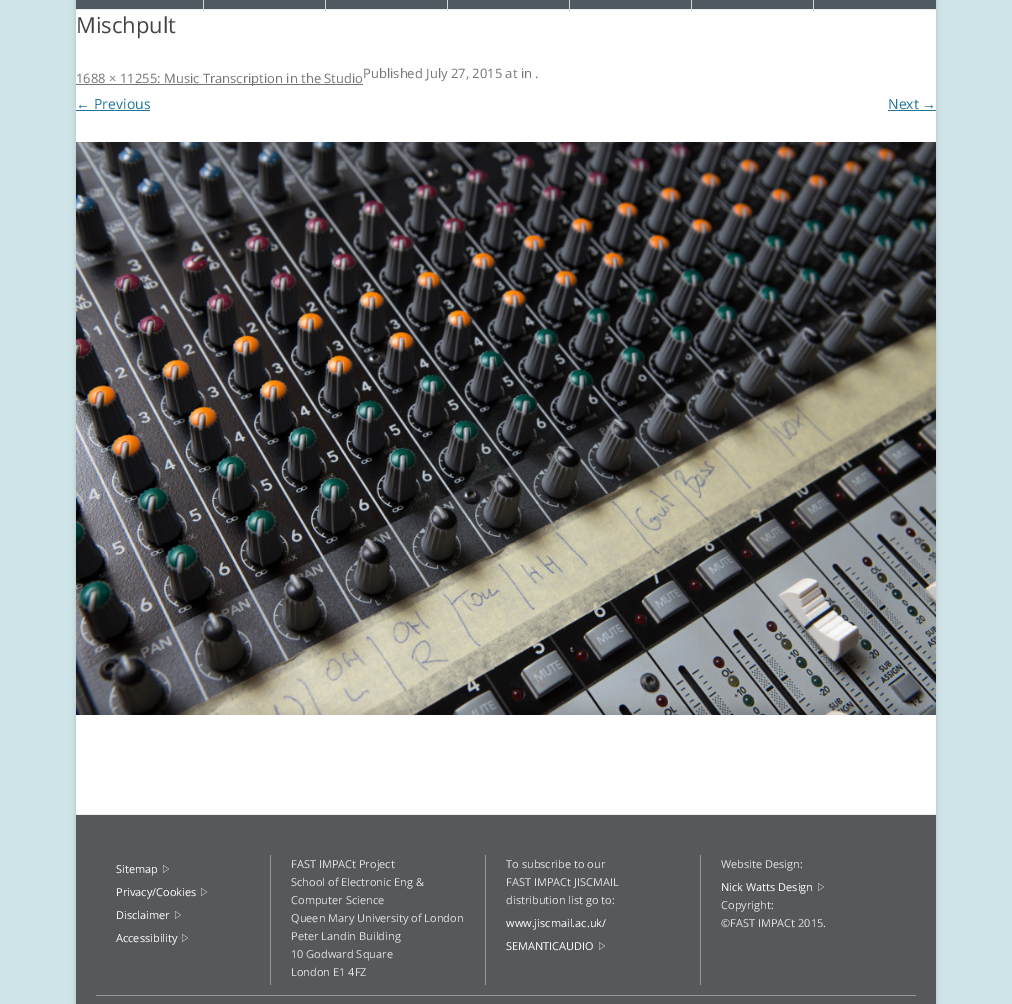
%!PS
<< /PageSize [1012 1004] /PageUsesTransparency true >> setpagedevice
/co { dup -16 bitshift 255 div exch dup -8 bitshift 255 and 255 div exch 255 and 255 div setrgbcolor } def
/fn { [ exch dup neg 0 0 3 -1 roll 0 0 ] selectfont } def
/tx { co fn moveto show } def
/bx { co rectfill } def
/al { dup .setfillconstantalpha .setstrokeconstantalpha } def
/rr { 5 dict begin { /r /h /w /y /x } { exch def } forall
  x r add y moveto x w add y 2 copy h add r arct x w add y h add x 1 index r arct
  x y h add x y r arct x y 2 copy exch w add exch r arct closepath end } def
/sh { 12 dict begin { /a /b /q /h /w /y /x } { exch def } forall gsave /was 0 def
  9 -2 -9 { dup b mul 4 div /e exch def 1 sub .425 mul 2.718 exch exp 1 add a .99 .min exch div /now exch def
    1 1 now sub 1 was sub div sub al /was now def
    w h .min e 2 mul add 0 gt { x e sub y e sub w e 2 mul add h e 2 mul add
      q e add b .6 mul add w h .min 2 div e add .min 0 .max rr fill } if } for grestore end } def
/im { 5 dict begin { /h /w /y /x /name } { exch def } forall
  gsave x y translate w h scale
  w h 8 [w 0 0 h 0 0] name (r) file false 3 colorimage grestore end } def
0 .pushpdf14devicefilter
0 1004 translate 1 -1 scale
4 setmiterlimit
0 0 1012 1004 16#CFE4E8 bx
16#646464 co
76 -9 860 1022 0 3 .3 sh
76 10 860 804 16#FFFFFF bx
76 0 860 9 16#4E5A60 bx
76 9 860 1 16#EDEDED bx
203 0 1 11 16#D5D6D7 bx
325 0 1 11 16#D5D6D7 bx
447 0 1 11 16#D5D6D7 bx
569 0 1 11 16#D5D6D7 bx
691 0 1 11 16#D5D6D7 bx
813 0 1 11 16#D5D6D7 bx
76 84 287 1 16#757575 bx
76 110 74 1 16#21759B bx
888 110 48 1 16#21759B bx
(media/1.raw) 76 142 860 573 im
76 815 860 189 16#57585B bx
76 814 860 1 16#EDEDED bx
(media/2.raw) 163 865 6 8 im
(media/3.raw) 201 888 6 8 im
(media/4.raw) 175 911 6 8 im
(media/4.raw) 182 934 6 8 im
270 855 1 130 16#95969A bx
485 855 1 130 16#95969A bx
(media/4.raw) 599 942 6 8 im
700 855 1 130 16#95969A bx
(media/5.raw) 818 883 6 8 im
96 995 820 1 16#95969A bx
(Mischpult) 76 33 /OpenSans-Regular 22 16#444444 tx
(1688 × 11255: Music Transcription in the Studio) 76 83 /OpenSans-Regular 13 16#757575 tx
(Published July 27, 2015 at in .) 363 78 /OpenSans-Regular 13 16#757575 tx
(←) 76 109 /LiberationSans-Regular 14 16#21759B tx
(Previous) 94 109 /OpenSans-Regular 14 16#21759B tx
(Next) 888 109 /OpenSans-Regular 14 16#21759B tx
(→) 922 109 /LiberationSans-Regular 14 16#21759B tx
(Sitemap) 116 873 /OpenSans-Regular 11 16#FFFFFF tx
(Privacy/Cookies) 116 896 /OpenSans-Regular 11 16#FFFFFF tx
(Disclaimer) 116 919 /OpenSans-Regular 11 16#FFFFFF tx
(Accessibility) 116 942 /OpenSans-Regular 11 16#FFFFFF tx
(FAST IMPACt Project) 291 868 /OpenSans-Regular 11 16#E0E1E3 tx
(School of Electronic Eng &) 291 886 /OpenSans-Regular 11 16#E0E1E3 tx
(Computer Science) 291 904 /OpenSans-Regular 11 16#E0E1E3 tx
(Queen Mary University of London) 291 922 /OpenSans-Regular 11 16#E0E1E3 tx
(Peter Landin Building) 291 940 /OpenSans-Regular 11 16#E0E1E3 tx
(10 Godward Square) 291 958 /OpenSans-Regular 11 16#E0E1E3 tx
(London E1 4FZ) 291 976 /OpenSans-Regular 11 16#E0E1E3 tx
(To subscribe to our) 506 868 /OpenSans-Regular 11 16#E0E1E3 tx
(FAST IMPACt JISCMAIL) 506 886 /OpenSans-Regular 11 16#E0E1E3 tx
(distribution list go to:) 506 904 /OpenSans-Regular 11 16#E0E1E3 tx
(www.jiscmail.ac.uk/) 506 927 /OpenSans-Regular 11 16#FFFFFF tx
(SEMANTICAUDIO) 506 950 /OpenSans-Regular 11 16#FFFFFF tx
(Website Design:) 721 868 /OpenSans-Regular 11 16#E0E1E3 tx
(Nick Watts Design) 721 891 /OpenSans-Regular 11 16#FFFFFF tx
(Copyright:) 721 909 /OpenSans-Regular 11 16#E0E1E3 tx
(©FAST IMPACt 2015.) 721 927 /OpenSans-Regular 11 16#E0E1E3 tx
.poppdf14devicefilter showpage
